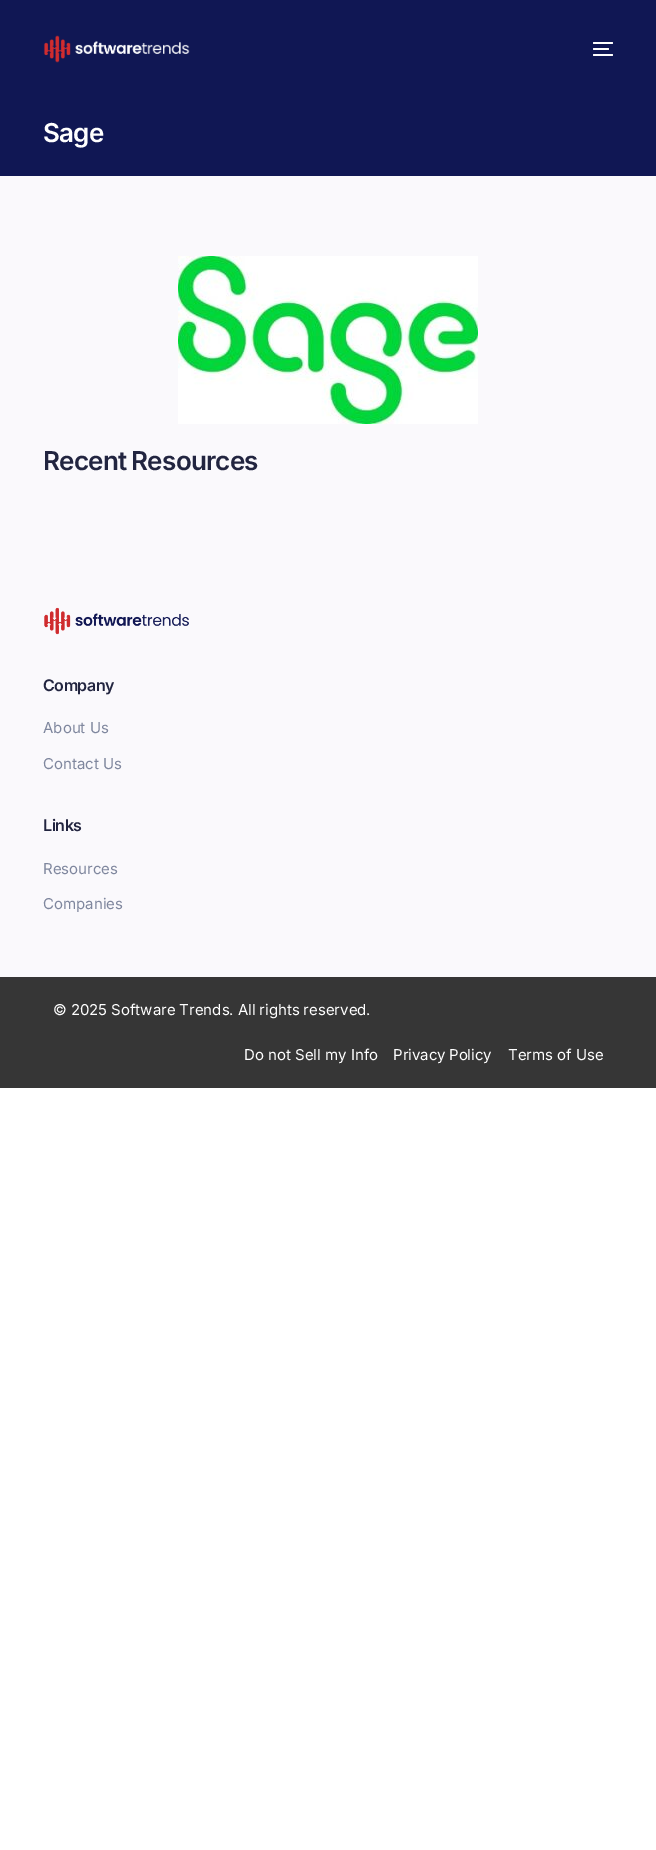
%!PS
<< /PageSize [656 1850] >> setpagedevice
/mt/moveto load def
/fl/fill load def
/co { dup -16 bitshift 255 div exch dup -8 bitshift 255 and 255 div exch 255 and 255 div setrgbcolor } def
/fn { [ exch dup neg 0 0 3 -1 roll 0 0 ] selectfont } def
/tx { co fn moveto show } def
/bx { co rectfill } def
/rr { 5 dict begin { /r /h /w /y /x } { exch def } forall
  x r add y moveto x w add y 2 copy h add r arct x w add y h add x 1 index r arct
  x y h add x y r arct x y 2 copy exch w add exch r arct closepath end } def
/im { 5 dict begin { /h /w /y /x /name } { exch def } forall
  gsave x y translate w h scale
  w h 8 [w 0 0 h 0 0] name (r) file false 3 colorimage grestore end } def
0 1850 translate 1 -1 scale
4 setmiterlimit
0 0 656 1850 16#FFFFFF bx
0 176 656 801 16#FAF9FC bx
0 0 656 176 16#101754 bx
(media/1.raw) 43 35 147 28 im
16#FFFFFF co
593 42 20 2 1 rr fl
593 48 16 2 1 rr fl
593 54 20 2 1 rr fl
(media/2.raw) 178 256 300 168 im
(media/3.raw) 44 607 145 28 im
0 977 656 111 16#363636 bx
/Inter-SemiBold 26 fn
16#FFFFFF co
43 142 mt -.75 0 (Sage) ashow
16#222540 co
43 470 mt -1 0 32 -.75 0 (Recent Resources) awidthshow
/Inter-SemiBold 16 fn
43 691 mt -.5 0 (Company) ashow
(About Us) 43 733 /Inter-Regular 15 16#7F879E tx
(Contact Us) 43 769 /Inter-Regular 15 16#7F879E tx
/Inter-SemiBold 16 fn
16#222540 co
43 831 mt -.5 0 (Links) ashow
(Resources) 43 874 /Inter-Regular 15 16#7F879E tx
(Companies) 43 909 /Inter-Regular 15 16#7F879E tx
16#FFFFFF co
53 1015 mt -.25 0 32 (© 2025 Software Trends. All rights reserved.) widthshow
(Do not Sell my Info) 244 1060 /Inter-Regular 15 16#FFFFFF tx
393 1060 mt -1 0 32 (Privacy Policy) widthshow
(Terms of Use) 508 1060 /Inter-Regular 15 16#FFFFFF tx
showpage
